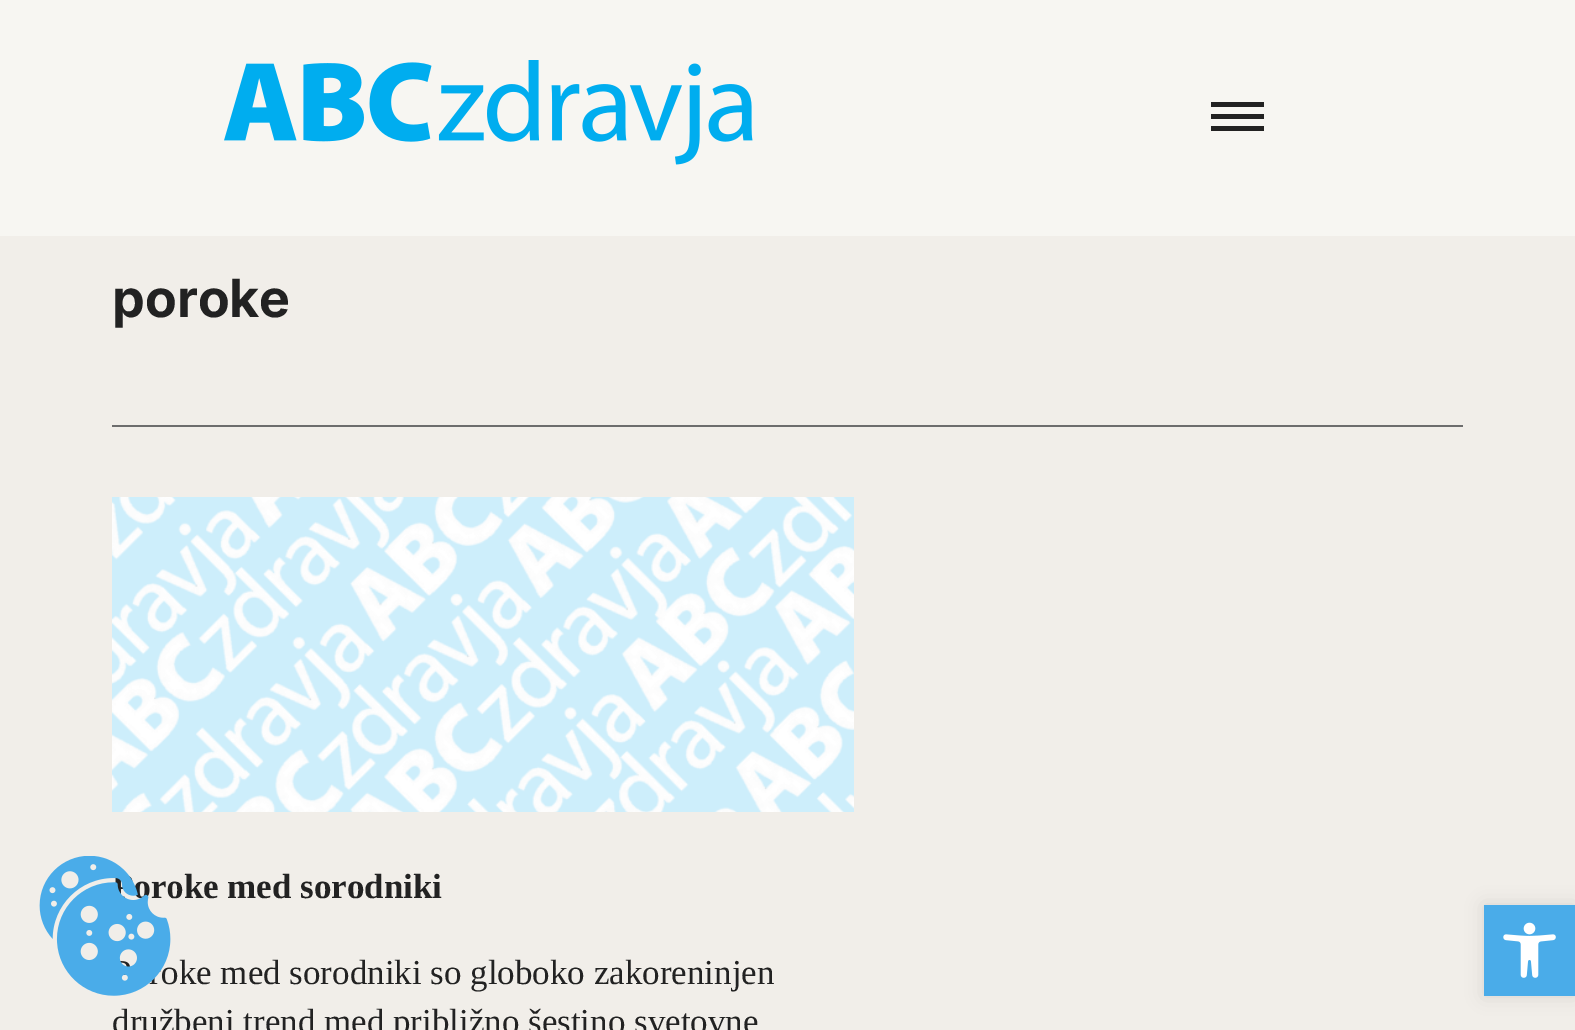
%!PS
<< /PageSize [1575 1030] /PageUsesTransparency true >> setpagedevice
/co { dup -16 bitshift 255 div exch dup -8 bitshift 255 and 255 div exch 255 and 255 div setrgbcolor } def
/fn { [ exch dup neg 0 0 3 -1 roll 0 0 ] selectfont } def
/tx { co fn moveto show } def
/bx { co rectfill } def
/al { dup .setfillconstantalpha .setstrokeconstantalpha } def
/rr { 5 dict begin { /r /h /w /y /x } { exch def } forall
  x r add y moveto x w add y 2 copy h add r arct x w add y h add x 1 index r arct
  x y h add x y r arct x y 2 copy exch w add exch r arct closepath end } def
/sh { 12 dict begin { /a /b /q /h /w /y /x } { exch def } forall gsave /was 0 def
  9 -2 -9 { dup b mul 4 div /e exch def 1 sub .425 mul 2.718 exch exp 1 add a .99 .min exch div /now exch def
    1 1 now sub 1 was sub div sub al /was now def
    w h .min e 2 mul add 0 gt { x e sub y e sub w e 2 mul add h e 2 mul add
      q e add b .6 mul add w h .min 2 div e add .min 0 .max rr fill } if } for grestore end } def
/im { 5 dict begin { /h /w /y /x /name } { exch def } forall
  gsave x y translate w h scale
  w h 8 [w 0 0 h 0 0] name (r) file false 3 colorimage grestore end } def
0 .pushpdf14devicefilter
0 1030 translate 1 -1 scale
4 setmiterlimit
0 0 1575 1030 16#F1EEE9 bx
0 0 1575 236 16#F7F6F2 bx
(media/2.raw) 224 60 529 105 im
1211 102 53 5 16#222222 bx
1211 114 53 5 16#222222 bx
1211 126 53 5 16#222222 bx
112 425 1351 2 16#6D6D6D bx
(media/3.raw) 112 497 742 315 im
16#000000 co
1484 905 91 91 0 9 .1 sh
1484 905 91 91 16#4AACE9 bx
(media/4.raw) 1503 922 53 56 im
(poroke) 112 317 /Inter-Bold 52.5 16#222222 tx
(oroke med sorodniki) 133 898 /LiberationSerif-Bold 35 16#222222 tx
(oke med sorodniki so globoko zakoreninjen) 161 984 /LiberationSerif-Regular 35 16#222222 tx
(media/1.raw) 39 856 132 140 im
(družbeni trend med približno šestino svetovne) 112 1033 /LiberationSerif-Regular 35 16#222222 tx
.poppdf14devicefilter showpage
